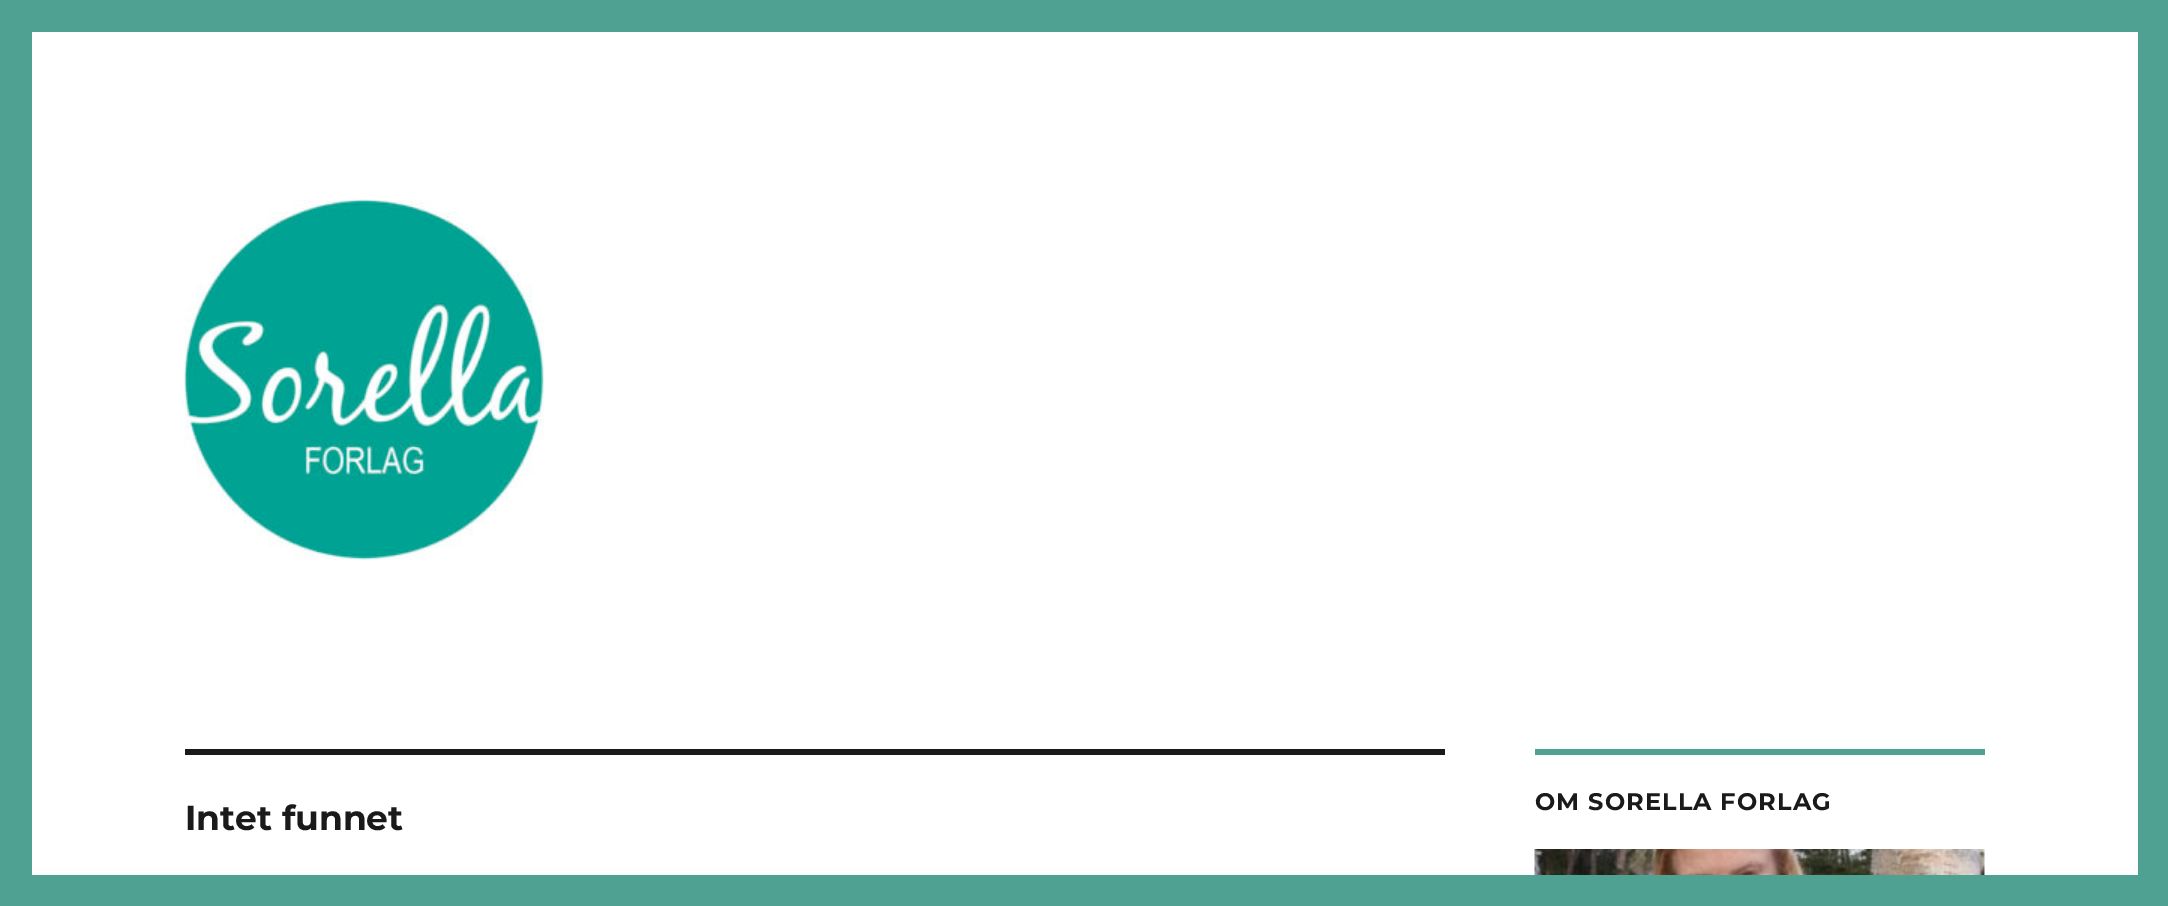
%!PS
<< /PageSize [2168 906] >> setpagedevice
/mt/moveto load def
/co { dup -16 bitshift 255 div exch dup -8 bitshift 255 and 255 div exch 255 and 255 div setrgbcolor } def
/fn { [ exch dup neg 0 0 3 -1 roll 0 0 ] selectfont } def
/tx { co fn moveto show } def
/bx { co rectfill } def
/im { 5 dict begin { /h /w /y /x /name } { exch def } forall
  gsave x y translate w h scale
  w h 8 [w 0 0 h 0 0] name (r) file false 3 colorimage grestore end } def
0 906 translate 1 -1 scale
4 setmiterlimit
0 0 2168 906 16#4FA192 bx
32 32 2106 843 16#FFFFFF bx
(media/1.raw) 184 199 361 361 im
1535 749 450 6 16#4FA192 bx
(media/2.raw) 1534 849 451 26 im
185 749 1260 6 16#1A1A1A bx
/Montserrat-Bold 24 fn
1535 810 mt 1.1 0 (OM SORELLA FORLAG) ashow
(Intet funnet) 185 830 /Montserrat-Bold 34.5 16#1A1A1A tx
showpage
